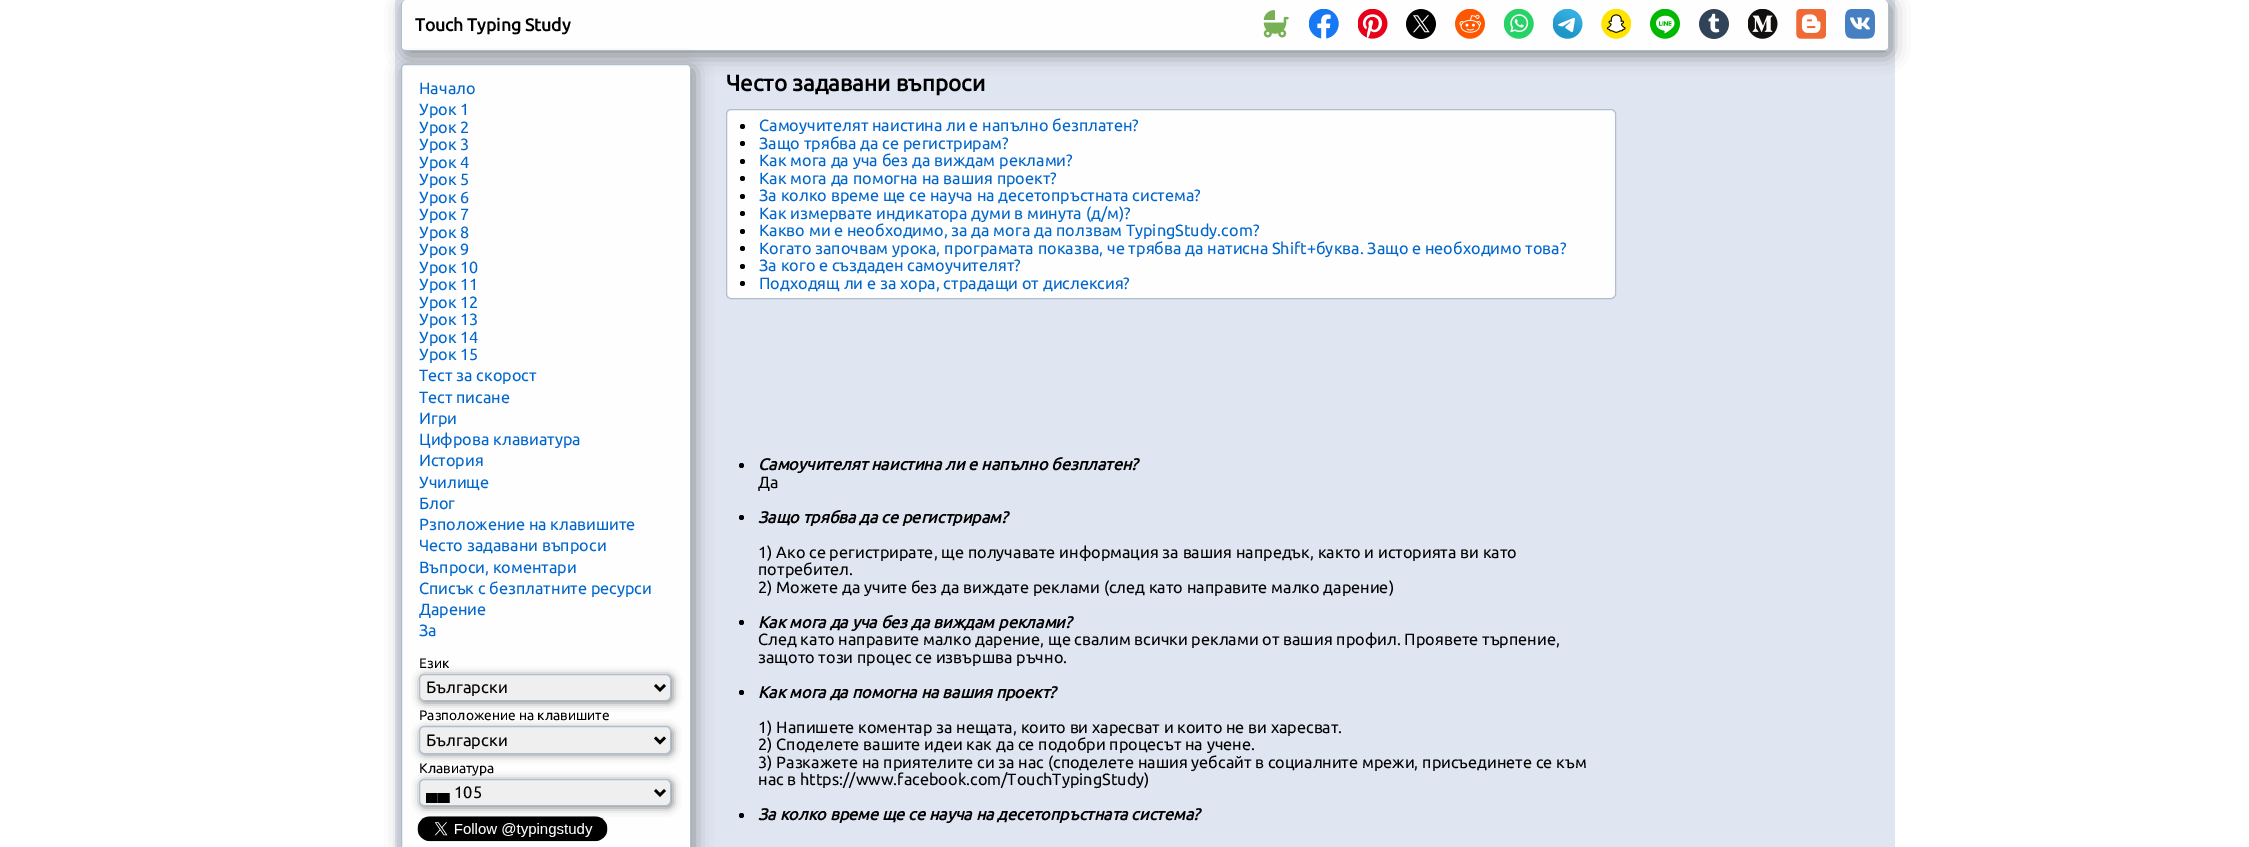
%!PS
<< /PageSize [2249 847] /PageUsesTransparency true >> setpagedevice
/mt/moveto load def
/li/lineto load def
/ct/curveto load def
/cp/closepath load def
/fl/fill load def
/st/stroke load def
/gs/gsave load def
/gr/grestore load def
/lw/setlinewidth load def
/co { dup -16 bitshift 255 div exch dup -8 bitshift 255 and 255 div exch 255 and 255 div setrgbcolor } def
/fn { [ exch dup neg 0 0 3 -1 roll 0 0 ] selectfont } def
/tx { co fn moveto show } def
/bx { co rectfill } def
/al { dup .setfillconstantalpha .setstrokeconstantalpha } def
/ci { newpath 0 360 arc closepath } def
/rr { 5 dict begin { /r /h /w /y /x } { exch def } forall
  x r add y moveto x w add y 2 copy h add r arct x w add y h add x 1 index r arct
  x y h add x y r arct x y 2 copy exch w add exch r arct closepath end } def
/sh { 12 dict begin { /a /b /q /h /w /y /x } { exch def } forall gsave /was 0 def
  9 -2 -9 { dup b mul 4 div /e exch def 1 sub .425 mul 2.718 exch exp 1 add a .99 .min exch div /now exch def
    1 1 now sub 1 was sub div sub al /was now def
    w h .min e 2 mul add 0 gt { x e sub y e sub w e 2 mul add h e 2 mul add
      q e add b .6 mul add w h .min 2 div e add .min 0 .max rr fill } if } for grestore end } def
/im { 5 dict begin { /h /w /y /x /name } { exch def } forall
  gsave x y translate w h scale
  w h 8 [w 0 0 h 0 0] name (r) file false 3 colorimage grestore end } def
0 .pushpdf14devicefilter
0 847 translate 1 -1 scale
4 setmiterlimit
0 0 2249 847 16#FFFFFF bx
395 0 1500 847 16#E0E6F1 bx
16#888888 co
404 4 1487 51 4 9 1 sh
16#FEFEFE co
401 0 1488 51 4 rr fl
16#B0BDCC co
405 0 mt 1885 0 li 1887 0 1889 2 1889 4 ct 1889 48 li 1889 50 1887 51 1885 51 ct 405 51 li 403 51 401 50 401 48 ct 401 4 li 401 2 403 0 405 0 ct cp 405 0 mt 1885 0 li 1886 0 1888 2 1888 4 ct 1888 48 li 1888 49 1886 50 1885 50 ct 405 50 li 404 50 402 49 402 48 ct 402 4 li 402 2 404 0 405 0 ct cp eofill
(media/1.raw) 1263 10 26 28 im
(media/2.raw) 1309 9 30 30 im
(media/3.raw) 1358 9 30 30 im
(media/4.raw) 1406 9 30 30 im
(media/5.raw) 1455 9 30 30 im
(media/6.raw) 1504 9 30 30 im
(media/7.raw) 1553 9 30 30 im
(media/8.raw) 1601 9 30 30 im
(media/9.raw) 1650 9 30 30 im
(media/10.raw) 1699 9 30 30 im
(media/11.raw) 1748 9 30 30 im
(media/12.raw) 1796 9 30 30 im
(media/13.raw) 1845 9 30 30 im
16#888888 co
404 68 290 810 4 9 1 sh
16#FEFEFE co
401.5 64.5 289 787 3.5 rr gs fl gr
16#B0BDCC co
st
16#888888 co
420 675 253 28 5 4 1 sh
16#EFEFEF co
419.5 674.5 251 26 4.5 rr gs fl gr
16#B0BDCC co
st
16#000000 co
2.5 lw
655 685 mt 660 690 li 665 685 li st
16#888888 co
420 728 253 27 5 4 1 sh
16#EFEFEF co
419.5 726.5 251 27 4.5 rr gs fl gr
16#B0BDCC co
1 lw
st
16#000000 co
2.5 lw
655 737.5 mt 660 742.5 li 665 737.5 li st
16#888888 co
420 780 253 28 5 4 1 sh
16#EFEFEF co
419.5 779.5 251 26 4.5 rr gs fl gr
16#B0BDCC co
1 lw
st
16#000000 co
2.5 lw
655 790 mt 660 795 li 665 790 li st
(media/14.raw) 417 816 191 26 im
16#FEFEFE co
726.5 109.5 889 189 4.5 rr gs fl gr
16#B0BDCC co
1 lw
st
16#000000 co
742.5 126.5 2.5 ci fl
742.5 143.5 2.5 ci fl
742.5 161.5 2.5 ci fl
742.5 178.5 2.5 ci fl
742.5 196.5 2.5 ci fl
742.5 213.5 2.5 ci fl
742.5 231.5 2.5 ci fl
742.5 248.5 2.5 ci fl
742.5 266.5 2.5 ci fl
742.5 283.5 2.5 ci fl
741.5 465.5 2.5 ci fl
741.5 517.5 2.5 ci fl
741.5 622.5 2.5 ci fl
741.5 692.5 2.5 ci fl
741.5 815.5 2.5 ci fl
(Touch Typing Study) 415 31 /Ubuntu-Bold 17.5 16#000000 tx
(Начало) 419 94 /Ubuntu-Regular 16.25 16#0066CC tx
(Урок 1) 419 115 /Ubuntu-Regular 16.25 16#0066CC tx
(Урок 2) 419 133 /Ubuntu-Regular 16.25 16#0066CC tx
(Урок 3) 419 150 /Ubuntu-Regular 16.25 16#0066CC tx
(Урок 4) 419 168 /Ubuntu-Regular 16.25 16#0066CC tx
(Урок 5) 419 185 /Ubuntu-Regular 16.25 16#0066CC tx
(Урок 6) 419 203 /Ubuntu-Regular 16.25 16#0066CC tx
(Урок 7) 419 220 /Ubuntu-Regular 16.25 16#0066CC tx
(Урок 8) 419 238 /Ubuntu-Regular 16.25 16#0066CC tx
(Урок 9) 419 255 /Ubuntu-Regular 16.25 16#0066CC tx
(Урок 10) 419 273 /Ubuntu-Regular 16.25 16#0066CC tx
(Урок 11) 419 290 /Ubuntu-Regular 16.25 16#0066CC tx
(Урок 12) 419 308 /Ubuntu-Regular 16.25 16#0066CC tx
(Урок 13) 419 325 /Ubuntu-Regular 16.25 16#0066CC tx
(Урок 14) 419 343 /Ubuntu-Regular 16.25 16#0066CC tx
(Урок 15) 419 360 /Ubuntu-Regular 16.25 16#0066CC tx
(Тест за скорост) 419 381 /Ubuntu-Regular 16.25 16#0066CC tx
(Тест писане) 419 403 /Ubuntu-Regular 16.25 16#0066CC tx
(Игри) 419 424 /Ubuntu-Regular 16.25 16#0066CC tx
(Цифрова клавиатура) 419 445 /Ubuntu-Regular 16.25 16#0066CC tx
(История) 419 466 /Ubuntu-Regular 16.25 16#0066CC tx
(Училище) 419 488 /Ubuntu-Regular 16.25 16#0066CC tx
(Блог) 419 509 /Ubuntu-Regular 16.25 16#0066CC tx
(Рзположение на клавишите) 419 530 /Ubuntu-Regular 16.25 16#0066CC tx
(Често задавани въпроси) 419 551 /Ubuntu-Regular 16.25 16#0066CC tx
(Въпроси, коментари) 419 573 /Ubuntu-Regular 16.25 16#0066CC tx
(Списък с безплатните ресурси) 419 594 /Ubuntu-Regular 16.25 16#0066CC tx
(Дарение) 419 615 /Ubuntu-Regular 16.25 16#0066CC tx
(За) 419 636 /Ubuntu-Regular 16.25 16#0066CC tx
(Език) 419 668 /Ubuntu-Regular 13.75 16#000000 tx
(Български) 426 693 /Ubuntu-Regular 16.5 16#000000 tx
(Разположение на клавишите) 419 720 /Ubuntu-Regular 13.75 16#000000 tx
(Български) 426 746 /Ubuntu-Regular 16.5 16#000000 tx
(Клавиатура) 419 773 /Ubuntu-Regular 13.75 16#000000 tx
(▄▄) 426 798 /LiberationSans-Regular 16.5 16#000000 tx
(105) 454 798 /Ubuntu-Regular 16.5 16#000000 tx
(Често задавани въпроси) 726 91 /Ubuntu-Bold 22.5 16#000000 tx
(Самоучителят наистина ли е напълно безплатен?) 759 131 /Ubuntu-Regular 16.25 16#0066CC tx
(Защо трябва да се регистрирам?) 759 149 /Ubuntu-Regular 16.25 16#0066CC tx
(Как мога да уча без да виждам реклами?) 759 166 /Ubuntu-Regular 16.25 16#0066CC tx
(Как мога да помогна на вашия проект?) 759 184 /Ubuntu-Regular 16.25 16#0066CC tx
(За колко време ще се науча на десетопръстната система?) 759 201 /Ubuntu-Regular 16.25 16#0066CC tx
(Как измервате индикатора думи в минута \(д/м\)?) 759 219 /Ubuntu-Regular 16.25 16#0066CC tx
(Какво ми е необходимо, за да мога да ползвам TypingStudy.com?) 759 236 /Ubuntu-Regular 16.25 16#0066CC tx
(Когато започвам урока, програмата показва, че трябва да натисна Shift+буква. Защо е необходимо това?) 759 254 /Ubuntu-Regular 16.25 16#0066CC tx
(За кого е създаден самоучителят?) 759 271 /Ubuntu-Regular 16.25 16#0066CC tx
(Подходящ ли е за хора, страдащи от дислексия?) 759 289 /Ubuntu-Regular 16.25 16#0066CC tx
(Самоучителят наистина ли е напълно безплатен?) 758 470 /Ubuntu-BoldItalic 16.25 16#000000 tx
(Да) 758 488 /Ubuntu-Regular 16.25 16#000000 tx
(Защо трябва да се регистрирам?) 758 523 /Ubuntu-BoldItalic 16.25 16#000000 tx
(1\) Ако се регистрирате, ще получавате информация за вашия напредък, както и историята ви като) 758 558 /Ubuntu-Regular 16.25 16#000000 tx
(потребител.) 758 575 /Ubuntu-Regular 16.25 16#000000 tx
(2\) Можете да учите без да виждате реклами \(след като направите малко дарение\)) 758 593 /Ubuntu-Regular 16.25 16#000000 tx
(Как мога да уча без да виждам реклами?) 758 628 /Ubuntu-BoldItalic 16.25 16#000000 tx
(След като направите малко дарение, ще свалим всички реклами от вашия профил. Проявете търпение,) 758 645 /Ubuntu-Regular 16.25 16#000000 tx
(защото този процес се извършва ръчно.) 758 663 /Ubuntu-Regular 16.25 16#000000 tx
(Как мога да помогна на вашия проект?) 758 698 /Ubuntu-BoldItalic 16.25 16#000000 tx
(1\) Напишете коментар за нещата, които ви харесват и които не ви харесват.) 758 733 /Ubuntu-Regular 16.25 16#000000 tx
(2\) Споделете вашите идеи как да се подобри процесът на учене.) 758 750 /Ubuntu-Regular 16.25 16#000000 tx
(3\) Разкажете на приятелите си за нас \(споделете нашия уебсайт в социалните мрежи, присъединете се към) 758 768 /Ubuntu-Regular 16.25 16#000000 tx
(нас в https://www.facebook.com/TouchTypingStudy\)) 758 785 /Ubuntu-Regular 16.25 16#000000 tx
(За колко време ще се науча на десетопръстната система?) 758 820 /Ubuntu-BoldItalic 16.25 16#000000 tx
.poppdf14devicefilter showpage
